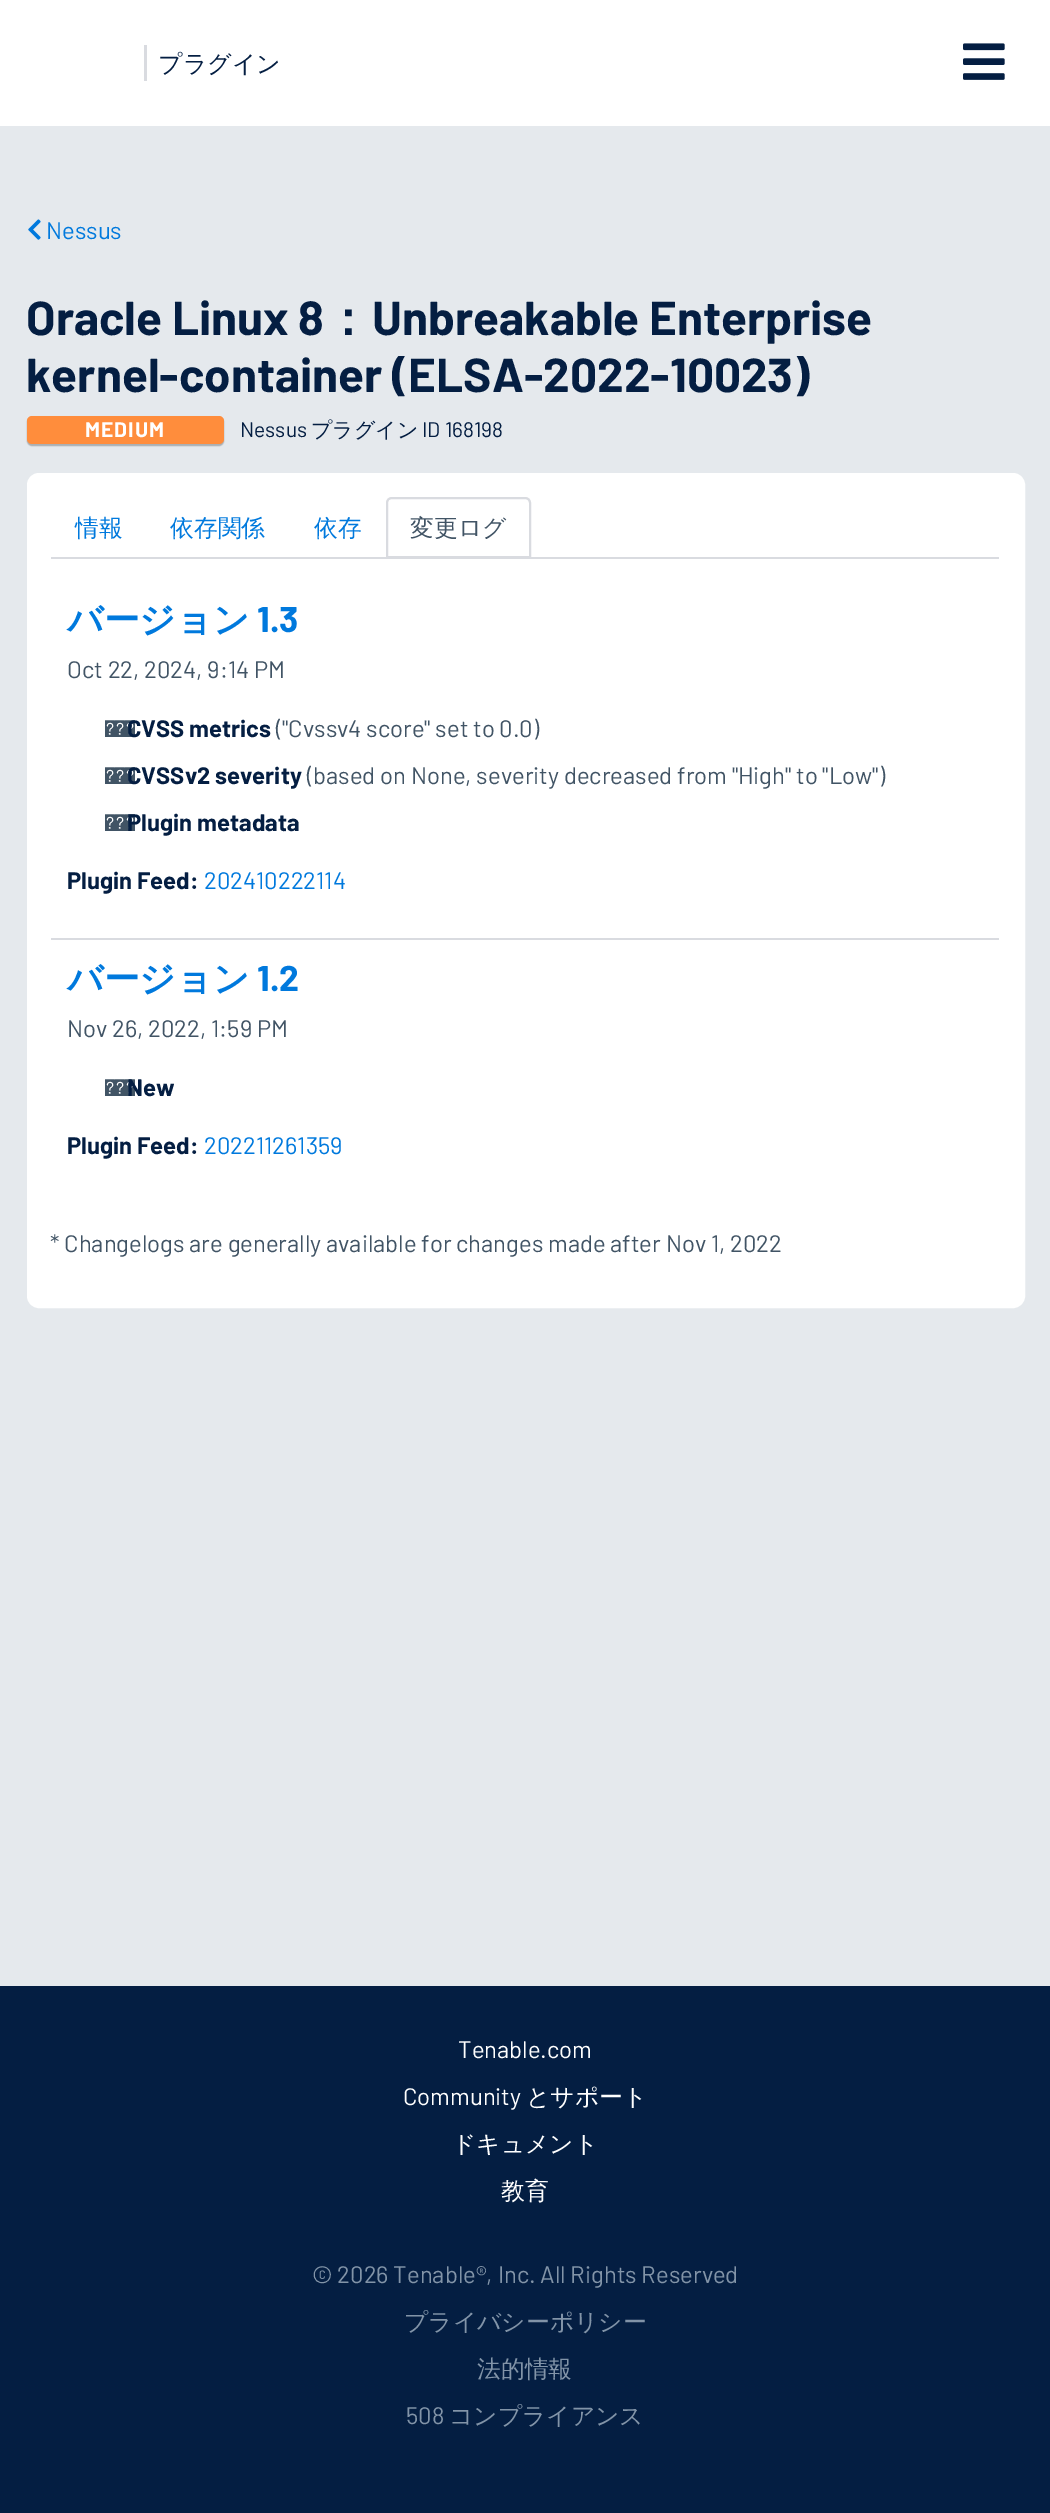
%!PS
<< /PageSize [1050 2513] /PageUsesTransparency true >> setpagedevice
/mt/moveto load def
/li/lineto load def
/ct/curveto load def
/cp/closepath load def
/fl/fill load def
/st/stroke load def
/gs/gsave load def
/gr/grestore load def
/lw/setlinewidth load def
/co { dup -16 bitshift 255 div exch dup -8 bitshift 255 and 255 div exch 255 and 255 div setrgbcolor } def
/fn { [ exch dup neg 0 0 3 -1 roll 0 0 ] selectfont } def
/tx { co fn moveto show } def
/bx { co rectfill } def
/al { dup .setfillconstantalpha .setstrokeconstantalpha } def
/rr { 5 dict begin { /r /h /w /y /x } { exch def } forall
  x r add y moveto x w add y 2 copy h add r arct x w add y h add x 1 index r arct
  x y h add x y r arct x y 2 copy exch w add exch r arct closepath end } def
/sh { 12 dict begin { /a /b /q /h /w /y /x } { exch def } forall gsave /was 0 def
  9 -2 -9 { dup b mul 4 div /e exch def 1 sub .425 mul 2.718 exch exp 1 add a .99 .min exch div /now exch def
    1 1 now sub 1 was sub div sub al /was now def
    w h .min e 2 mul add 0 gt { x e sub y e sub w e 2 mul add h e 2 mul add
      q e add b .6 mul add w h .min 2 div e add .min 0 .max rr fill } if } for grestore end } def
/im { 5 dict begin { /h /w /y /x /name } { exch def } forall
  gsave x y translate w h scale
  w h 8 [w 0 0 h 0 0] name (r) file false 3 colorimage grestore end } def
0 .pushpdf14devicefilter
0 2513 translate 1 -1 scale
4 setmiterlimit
0 0 1050 2513 16#FFFFFF bx
144 45 3 36 16#D9DBE0 bx
(media/1.raw) 963 43 42 37 im
0 126 1050 1860 16#E5E9ED bx
(media/2.raw) 28 219 13 21 im
16#000000 co
27 417 197 29 5 .5 .25 sh
16#FF8D3C co
27 416 197 28 5 rr fl
16#FFFFFF co
28 474 996 833 11 rr gs fl gr
2 lw
st
51 557 948 2 16#D9DBE0 bx
16#FFFFFF co
392 498 mt 525 498 li 528 498 530 500 530 503 ct 530 557 li 387 557 li 387 503 li 387 500 389 498 392 498 ct cp gs fl gr
16#D9DBE0 co
st
51 938 948 2 16#D9DBE0 bx
0 1986 1050 527 16#041E42 bx
(プラグイン) 158 72 /WenQuanYiZenHei-Medium 24 16#041E42 tx
(Nessus) 46 239 /Barlow-Regular 23.8 16#0079DD tx
(Oracle Linux 8) 26 335 /Barlow-Bold 47.6 16#041E42 tx
(：) 324 335 /WenQuanYiZenHei-Bold 47.6 16#041E42 tx
(Unbreakable Enterprise) 372 335 /Barlow-Bold 47.6 16#041E42 tx
(kernel-container \(ELSA-2022-10023\)) 26 392 /Barlow-Bold 47.6 16#041E42 tx
/Barlow-Bold 21 fn
16#FFFFFF co
85 437 mt 1 0 (MEDIUM) ashow
(Nessus) 240 437 /Barlow-Regular 21 16#041E42 tx
(プラグイン) 311 437 /WenQuanYiZenHei-Medium 21 16#041E42 tx
(ID 168198) 422 437 /Barlow-Regular 21 16#041E42 tx
(情報) 75 536 /WenQuanYiZenHei-Medium 23.8 16#0079DD tx
(依存関係) 170 536 /WenQuanYiZenHei-Medium 23.8 16#0079DD tx
(依存) 314 536 /WenQuanYiZenHei-Medium 23.8 16#0079DD tx
(変更ログ) 410 536 /WenQuanYiZenHei-Medium 23.8 16#415465 tx
(バージョン) 67 632 /WenQuanYiZenHei-Bold 35.75 16#0079DD tx
(1.3) 257 632 /Barlow-Bold 35.75 16#0079DD tx
(Oct 22, 2024, 9:14 PM) 67 678 /Barlow-Regular 23.8 16#415465 tx
(‑) 105 737 /Barlow-Regular 23.8 16#415465 tx
(CVSS metrics) 127 737 /Barlow-Bold 23.8 16#041E42 tx
(\("Cvssv4 score" set to 0.0\)) 276 737 /Barlow-Regular 23.8 16#415465 tx
(‑) 105 784 /Barlow-Regular 23.8 16#415465 tx
(CVSSv2 severity) 127 784 /Barlow-Bold 23.8 16#041E42 tx
(\(based on None, severity decreased from "High" to "Low"\)) 307 784 /Barlow-Regular 23.8 16#415465 tx
(‑) 105 831 /Barlow-Regular 23.8 16#415465 tx
(Plugin metadata) 127 831 /Barlow-Bold 23.8 16#041E42 tx
(Plugin Feed:) 67 889 /Barlow-Bold 23.8 16#041E42 tx
(202410222114) 204 889 /Barlow-Regular 23.8 16#0079DD tx
(バージョン) 67 991 /WenQuanYiZenHei-Bold 35.75 16#0079DD tx
(1.2) 257 991 /Barlow-Bold 35.75 16#0079DD tx
(Nov 26, 2022, 1:59 PM) 67 1037 /Barlow-Regular 23.8 16#415465 tx
(‑) 105 1096 /Barlow-Regular 23.8 16#415465 tx
(New) 127 1096 /Barlow-Bold 23.8 16#041E42 tx
(Plugin Feed:) 67 1154 /Barlow-Bold 23.8 16#041E42 tx
(202211261359) 204 1154 /Barlow-Regular 23.8 16#0079DD tx
(* Changelogs are generally available for changes made after Nov 1, 2022) 50 1252 /Barlow-Regular 23.8 16#415465 tx
(Tenable.com) 458 2058 /Barlow-Regular 23.8 16#FFFFFF tx
(Community) 403 2105 /Barlow-Regular 23.8 16#FFFFFF tx
(とサポート) 526 2105 /WenQuanYiZenHei-Medium 23.8 16#FFFFFF tx
(ドキュメント) 452 2152 /WenQuanYiZenHei-Medium 23.8 16#FFFFFF tx
(教育) 501 2199 /WenQuanYiZenHei-Medium 23.8 16#FFFFFF tx
(© 2026 Tenable®, Inc. All Rights Reserved) 312 2283 /Barlow-Regular 23.8 16#8294A8 tx
(プライバシーポリシー) 404 2330 /WenQuanYiZenHei-Medium 23.8 16#8294A8 tx
(法的情報) 477 2377 /WenQuanYiZenHei-Medium 23.8 16#8294A8 tx
(508) 406 2424 /Barlow-Regular 23.8 16#8294A8 tx
(コンプライアンス) 449 2424 /WenQuanYiZenHei-Medium 23.8 16#8294A8 tx
.poppdf14devicefilter showpage
